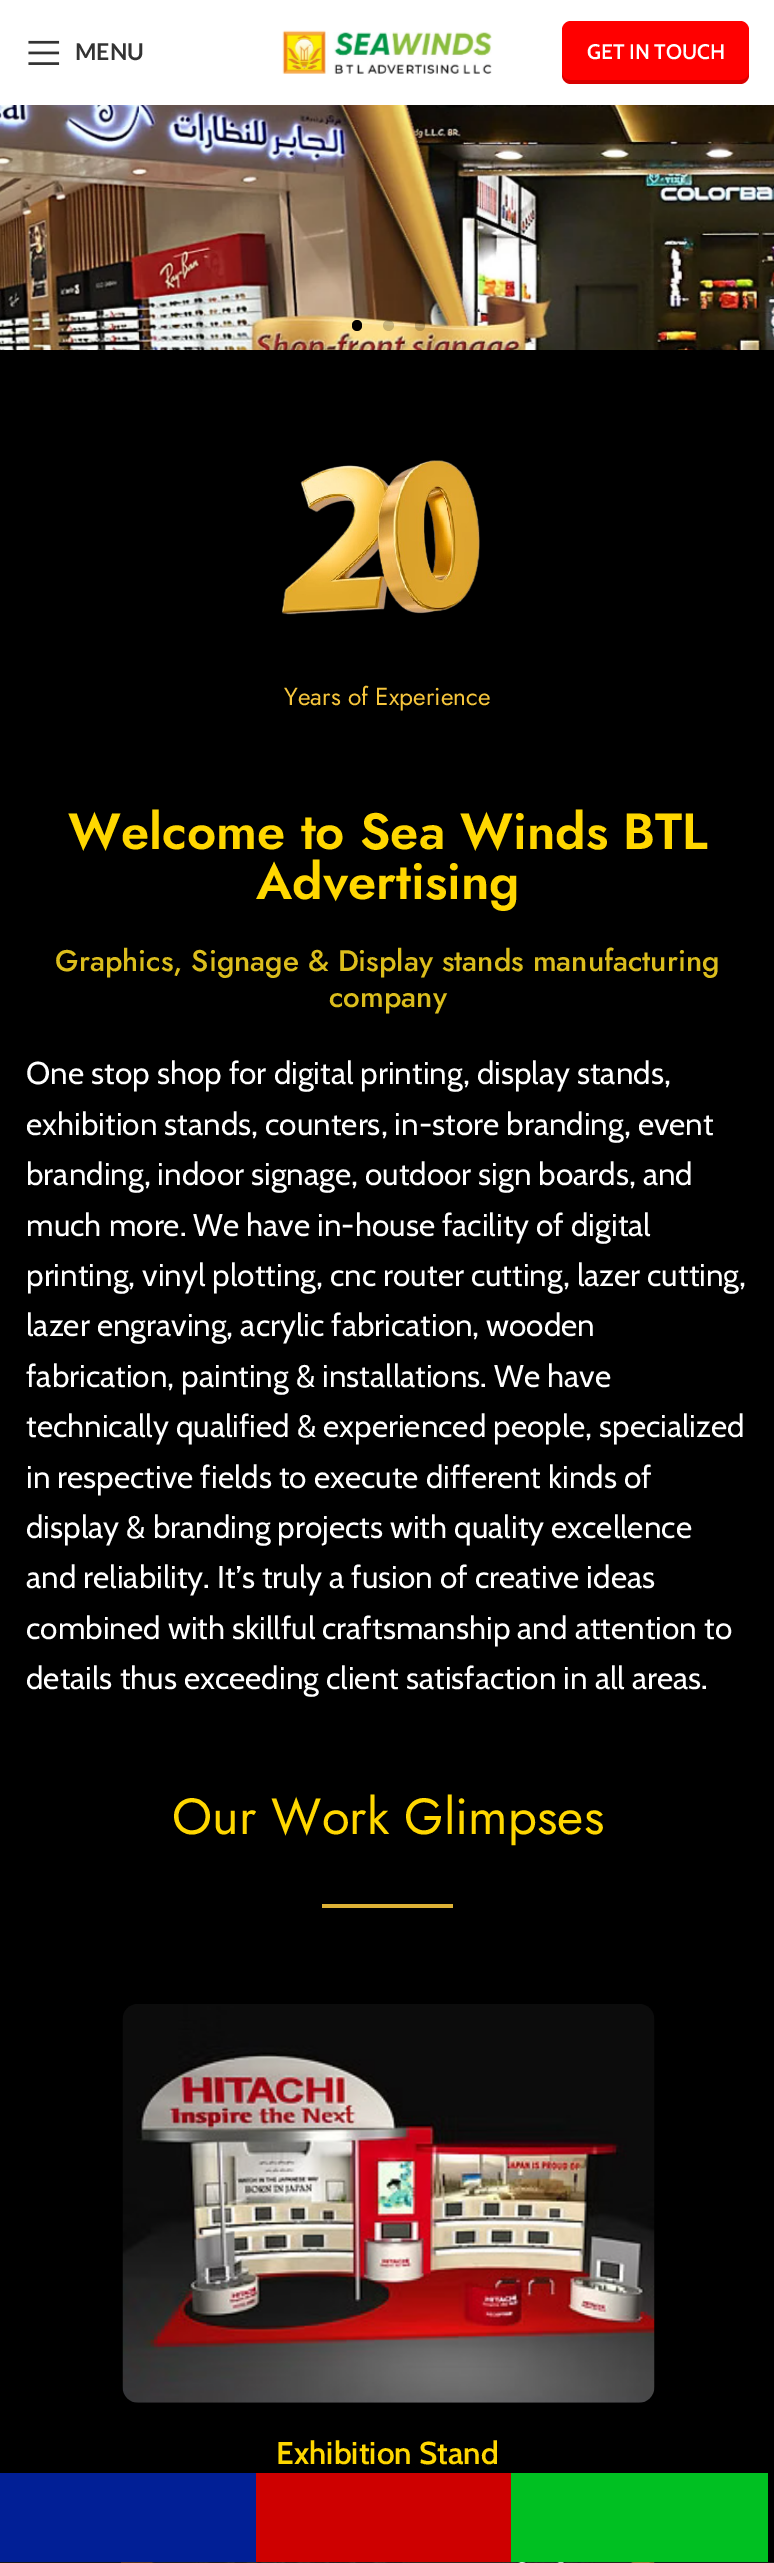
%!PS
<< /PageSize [774 2563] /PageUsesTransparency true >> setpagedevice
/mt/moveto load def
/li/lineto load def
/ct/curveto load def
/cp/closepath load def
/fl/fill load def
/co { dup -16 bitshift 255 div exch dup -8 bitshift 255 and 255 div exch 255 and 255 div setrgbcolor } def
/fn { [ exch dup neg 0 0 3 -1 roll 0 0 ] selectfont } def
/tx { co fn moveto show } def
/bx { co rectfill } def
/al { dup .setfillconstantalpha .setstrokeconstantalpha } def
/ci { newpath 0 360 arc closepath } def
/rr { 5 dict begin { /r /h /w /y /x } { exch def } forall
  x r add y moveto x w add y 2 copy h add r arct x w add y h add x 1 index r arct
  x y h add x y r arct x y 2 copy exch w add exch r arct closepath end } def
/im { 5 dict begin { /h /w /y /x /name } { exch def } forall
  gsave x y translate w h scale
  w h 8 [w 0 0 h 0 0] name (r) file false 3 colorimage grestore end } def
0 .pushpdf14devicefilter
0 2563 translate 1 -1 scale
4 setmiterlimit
0 0 774 2563 16#000000 bx
0 0 774 105 16#FFFFFF bx
(media/1.raw) 28 40 32 25 im
(media/2.raw) 282 30 210 44 im
16#FF0000 co
562 21 187 63 9 rr fl
0.15 al
16#000000 co
562 72 mt 562 75 li 562 80 566 84 571 84 ct 740 84 li 745 84 749 80 749 75 ct 749 72 li 749 77 745 80 740 80 ct 570 80 li 566 80 562 77 562 72 ct cp fl
1 al
(media/3.raw) 0 105 774 245 im
352 320 10 11 5 rr fl
0.2 al
388.5 325.5 5.5 ci fl
415 320 10 11 5 rr fl
1 al
(media/4.raw) 281 460 199 155 im
322 1904 131 4 16#DDB136 bx
(media/5.raw) 122 2004 533 399 im
(media/6.raw) 120 2562 535 1 im
0.1 al
0 2562 774 1 16#FFFFFF bx
1 al
0 2473 256 89 16#011F96 bx
256 2473 255 89 16#CE0000 bx
511 2473 257 89 16#00C022 bx
(MENU) 75 60 /Lato-Bold 23 16#333333 tx
(GET IN TOUCH) 587 59 /Cabin-SemiBold 21 16#FFFFFF tx
(Years of Experience) 284 705 /Jost-Regular 24.5 16#F7C63C tx
(Welcome to Sea Winds BTL) 68 849 /Jost-SemiBold 50.75 16#FFD700 tx
(Advertising) 256 899 /Jost-SemiBold 50.75 16#FFD700 tx
(Graphics, Signage & Display stands manufacturing) 55 971 /Jost-Medium 29.75 16#DBBD1C tx
(company) 329 1007 /Jost-Medium 29.75 16#DBBD1C tx
(One stop shop for digital printing, display stands,) 26 1084 /Cabin-Regular 31.5 16#FFFFFF tx
(exhibition stands, counters, in-store branding, event) 26 1135 /Cabin-Regular 31.5 16#FFFFFF tx
(branding, indoor signage, outdoor sign boards, and) 26 1185 /Cabin-Regular 31.5 16#FFFFFF tx
(much more. We have in-house facility of digital) 26 1236 /Cabin-Regular 31.5 16#FFFFFF tx
(printing, vinyl plotting, cnc router cutting, lazer cutting,) 26 1286 /Cabin-Regular 31.5 16#FFFFFF tx
(lazer engraving, acrylic fabrication, wooden) 26 1336 /Cabin-Regular 31.5 16#FFFFFF tx
(fabrication, painting & installations. We have) 26 1387 /Cabin-Regular 31.5 16#FFFFFF tx
(technically qualified & experienced people, specialized) 26 1437 /Cabin-Regular 31.5 16#FFFFFF tx
(in respective fields to execute different kinds of) 26 1488 /Cabin-Regular 31.5 16#FFFFFF tx
(display & branding projects with quality excellence) 26 1538 /Cabin-Regular 31.5 16#FFFFFF tx
(and reliability. It’s truly a fusion of creative ideas) 26 1588 /Cabin-Regular 31.5 16#FFFFFF tx
(combined with skillful craftsmanship and attention to) 26 1639 /Cabin-Regular 31.5 16#FFFFFF tx
(details thus exceeding client satisfaction in all areas.) 26 1689 /Cabin-Regular 31.5 16#FFFFFF tx
(Our Work Glimpses) 172 1834 /Jost-Regular 50.75 16#FFD700 tx
(Exhibition Stand) 276 2464 /Cabin-SemiBold 31.5 16#FFD700 tx
.poppdf14devicefilter showpage
